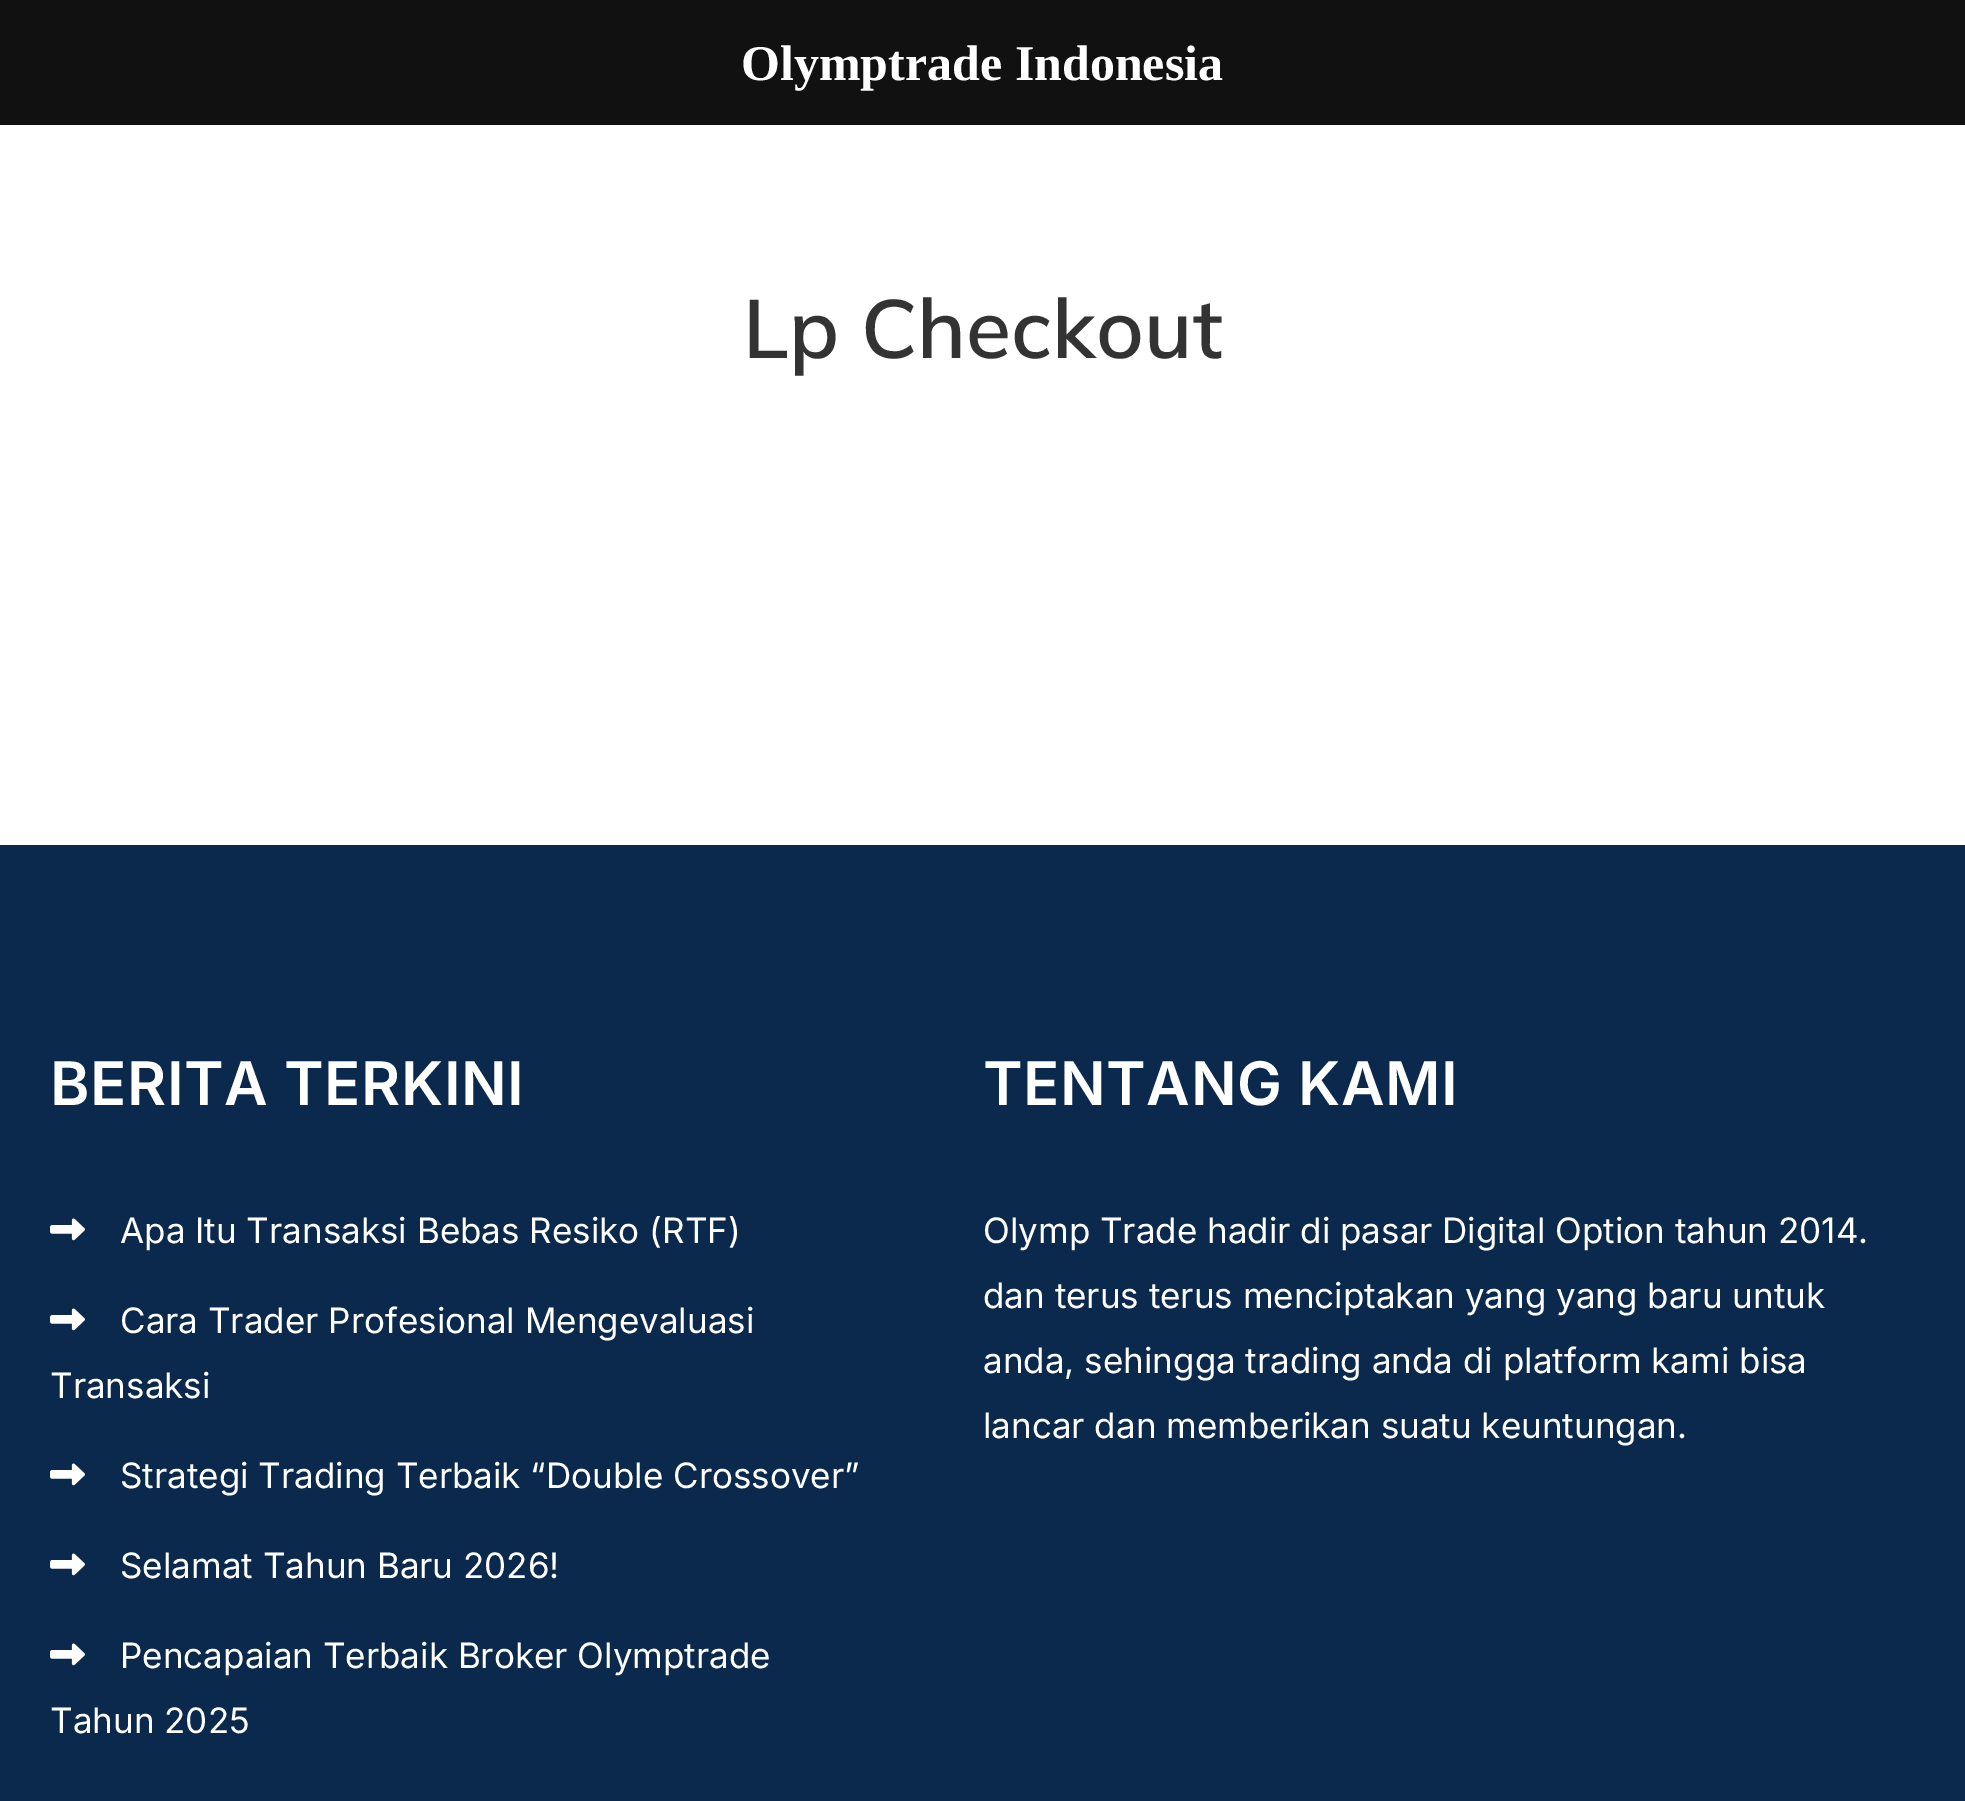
%!PS
<< /PageSize [1965 1801] >> setpagedevice
/mt/moveto load def
/co { dup -16 bitshift 255 div exch dup -8 bitshift 255 and 255 div exch 255 and 255 div setrgbcolor } def
/fn { [ exch dup neg 0 0 3 -1 roll 0 0 ] selectfont } def
/tx { co fn moveto show } def
/bx { co rectfill } def
/im { 5 dict begin { /h /w /y /x /name } { exch def } forall
  gsave x y translate w h scale
  w h 8 [w 0 0 h 0 0] name (r) file false 3 colorimage grestore end } def
0 1801 translate 1 -1 scale
4 setmiterlimit
0 0 1965 1801 16#FFFFFF bx
0 0 1965 125 16#111111 bx
0 845 1965 956 16#0A294D bx
(media/1.raw) 50 1218 35 23 im
(media/1.raw) 50 1308 35 23 im
(media/1.raw) 50 1463 35 23 im
(media/1.raw) 50 1553 35 23 im
(media/1.raw) 50 1643 35 23 im
(Olymptrade Indonesia) 741 80 /LiberationSerif-Bold 50 16#FFFFFF tx
(Lp Checkout) 743 358 /Mulish-SemiBold 82.5 16#333333 tx
/Inter-SemiBold 60 fn
16#FFFFFF co
50 1105 mt .6 0 (BERITA TERKINI) ashow
(Apa Itu Transaksi Bebas Resiko \(RTF\)) 120 1243 /Inter-Regular 35 16#FFFFFF tx
(Cara Trader Profesional Mengevaluasi) 120 1333 /Inter-Regular 35 16#FFFFFF tx
(Transaksi) 50 1398 /Inter-Regular 35 16#FFFFFF tx
(Strategi Trading Terbaik “Double Crossover”) 120 1488 /Inter-Regular 35 16#FFFFFF tx
(Selamat Tahun Baru 2026!) 120 1578 /Inter-Regular 35 16#FFFFFF tx
(Pencapaian Terbaik Broker Olymptrade) 120 1668 /Inter-Regular 35 16#FFFFFF tx
(Tahun 2025) 50 1733 /Inter-Regular 35 16#FFFFFF tx
/Inter-SemiBold 60 fn
983 1105 mt .6 0 (TENTANG KAMI) ashow
(Olymp Trade hadir di pasar Digital Option tahun 2014.) 983 1243 /Inter-Regular 35 16#FFFFFF tx
(dan terus terus menciptakan yang yang baru untuk) 983 1308 /Inter-Regular 35 16#FFFFFF tx
(anda, sehingga trading anda di platform kami bisa) 983 1373 /Inter-Regular 35 16#FFFFFF tx
(lancar dan memberikan suatu keuntungan.) 983 1438 /Inter-Regular 35 16#FFFFFF tx
showpage
